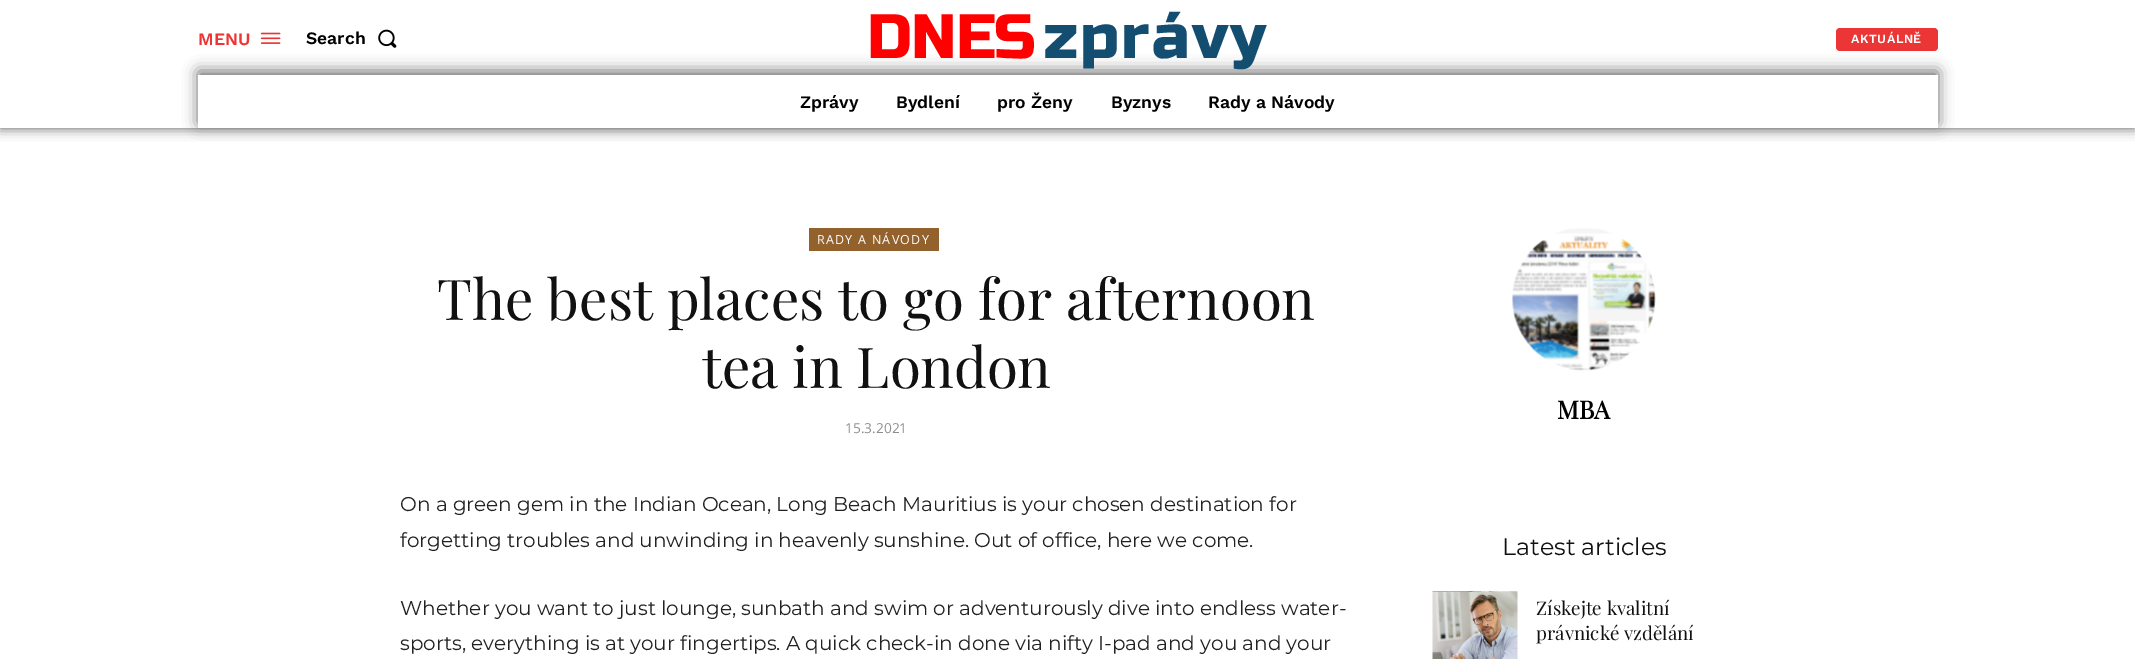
%!PS
<< /PageSize [2135 659] /PageUsesTransparency true >> setpagedevice
/mt/moveto load def
/li/lineto load def
/cp/closepath load def
/fl/fill load def
/gs/gsave load def
/gr/grestore load def
/co { dup -16 bitshift 255 div exch dup -8 bitshift 255 and 255 div exch 255 and 255 div setrgbcolor } def
/fn { [ exch dup neg 0 0 3 -1 roll 0 0 ] selectfont } def
/tx { co fn moveto show } def
/bx { co rectfill } def
/al { dup .setfillconstantalpha .setstrokeconstantalpha } def
/rr { 5 dict begin { /r /h /w /y /x } { exch def } forall
  x r add y moveto x w add y 2 copy h add r arct x w add y h add x 1 index r arct
  x y h add x y r arct x y 2 copy exch w add exch r arct closepath end } def
/sh { 12 dict begin { /a /b /q /h /w /y /x } { exch def } forall gsave /was 0 def
  9 -2 -9 { dup b mul 4 div /e exch def 1 sub .425 mul 2.718 exch exp 1 add a .99 .min exch div /now exch def
    1 1 now sub 1 was sub div sub al /was now def
    w h .min e 2 mul add 0 gt { x e sub y e sub w e 2 mul add h e 2 mul add
      q e add b .6 mul add w h .min 2 div e add .min 0 .max rr fill } if } for grestore end } def
/im { 5 dict begin { /h /w /y /x /name } { exch def } forall
  gsave x y translate w h scale
  w h 8 [w 0 0 h 0 0] name (r) file false 3 colorimage grestore end } def
0 .pushpdf14devicefilter
0 659 translate 1 -1 scale
4 setmiterlimit
0 0 2135 659 16#FFFFFF bx
(media/1.raw) 260 32 21 12 im
16#EC3535 co
1836 28 102 23 4 rr fl
gs
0 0 mt 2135 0 li 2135 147 li 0 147 li cp 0 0 mt 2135 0 li 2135 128 li 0 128 li cp eoclip newpath
16#2D2D2D co
0 0 2135 128 0 6 .79 sh
gr
gs
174 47 mt 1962 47 li 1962 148 li 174 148 li cp 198 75 mt 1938 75 li 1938 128 li 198 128 li cp eoclip newpath
16#707070 co
198 71 1740 53 0 7.5 1 sh
gr
(media/2.raw) 378 29 19 19 im
809 228 130 23 16#93612C bx
(media/3.raw) 1512 228 144 143 im
(media/4.raw) 1432 591 86 68 im
(MENU) 198 45 /WorkSans-SemiBold 17.5 16#EC3535 tx
(Search) 306 44 /WorkSans-SemiBold 17.5 16#000000 tx
/RussoOne-Regular 62.5 fn
16#FF0000 co
867 58 mt -1 0 (DNES) ashow
16#134D70 co
1044 58 mt 2.25 0 (zprávy) ashow
/WorkSans-SemiBold 12.5 fn
16#FFFFFF co
1851 43 mt .5 0 (AKTUÁLNĚ) ashow
(Zprávy) 800 108 /WorkSans-SemiBold 17.5 16#000000 tx
(Bydlení) 896 108 /WorkSans-SemiBold 17.5 16#000000 tx
(pro Ženy) 997 108 /WorkSans-SemiBold 17.5 16#000000 tx
(Byznys) 1111 108 /WorkSans-SemiBold 17.5 16#000000 tx
(Rady a Návody) 1208 108 /WorkSans-SemiBold 17.5 16#000000 tx
/OpenSans-Regular 12.5 fn
16#FFFFFF co
817 244 mt 1.25 0 (RADY A NÁVODY) ashow
(The best places to go for afternoon) 437 320 /PlayfairDisplay-Regular 56.25 16#111111 tx
(tea in London) 702 388 /PlayfairDisplay-Regular 56.25 16#111111 tx
(15.3.2021) 845 433 /OpenSans-Regular 13.75 16#8E8E8E tx
(On a green gem in the Indian Ocean, Long Beach Mauritius is your chosen destination for) 400 511 /Montserrat-Thin 20 16#222222 tx
(forgetting troubles and unwinding in heavenly sunshine. Out of office, here we come.) 400 547 /Montserrat-Thin 20 16#222222 tx
(Whether you want to just lounge, sunbath and swim or adventurously dive into endless water-) 400 615 /Montserrat-Thin 20 16#222222 tx
(sports, everything is at your fingertips. A quick check-in done via nifty I-pad and you and your) 400 650 /Montserrat-Thin 20 16#222222 tx
(MBA) 1557 419 /PlayfairDisplay-Bold 25 16#000000 tx
(Latest articles) 1502 555 /Montserrat-Thin 23.75 16#111111 tx
(Získejte kvalitní) 1536 615 /PlayfairDisplay-Regular 18.75 16#111111 tx
(právnické vzdělání) 1536 640 /PlayfairDisplay-Regular 18.75 16#111111 tx
.poppdf14devicefilter showpage
